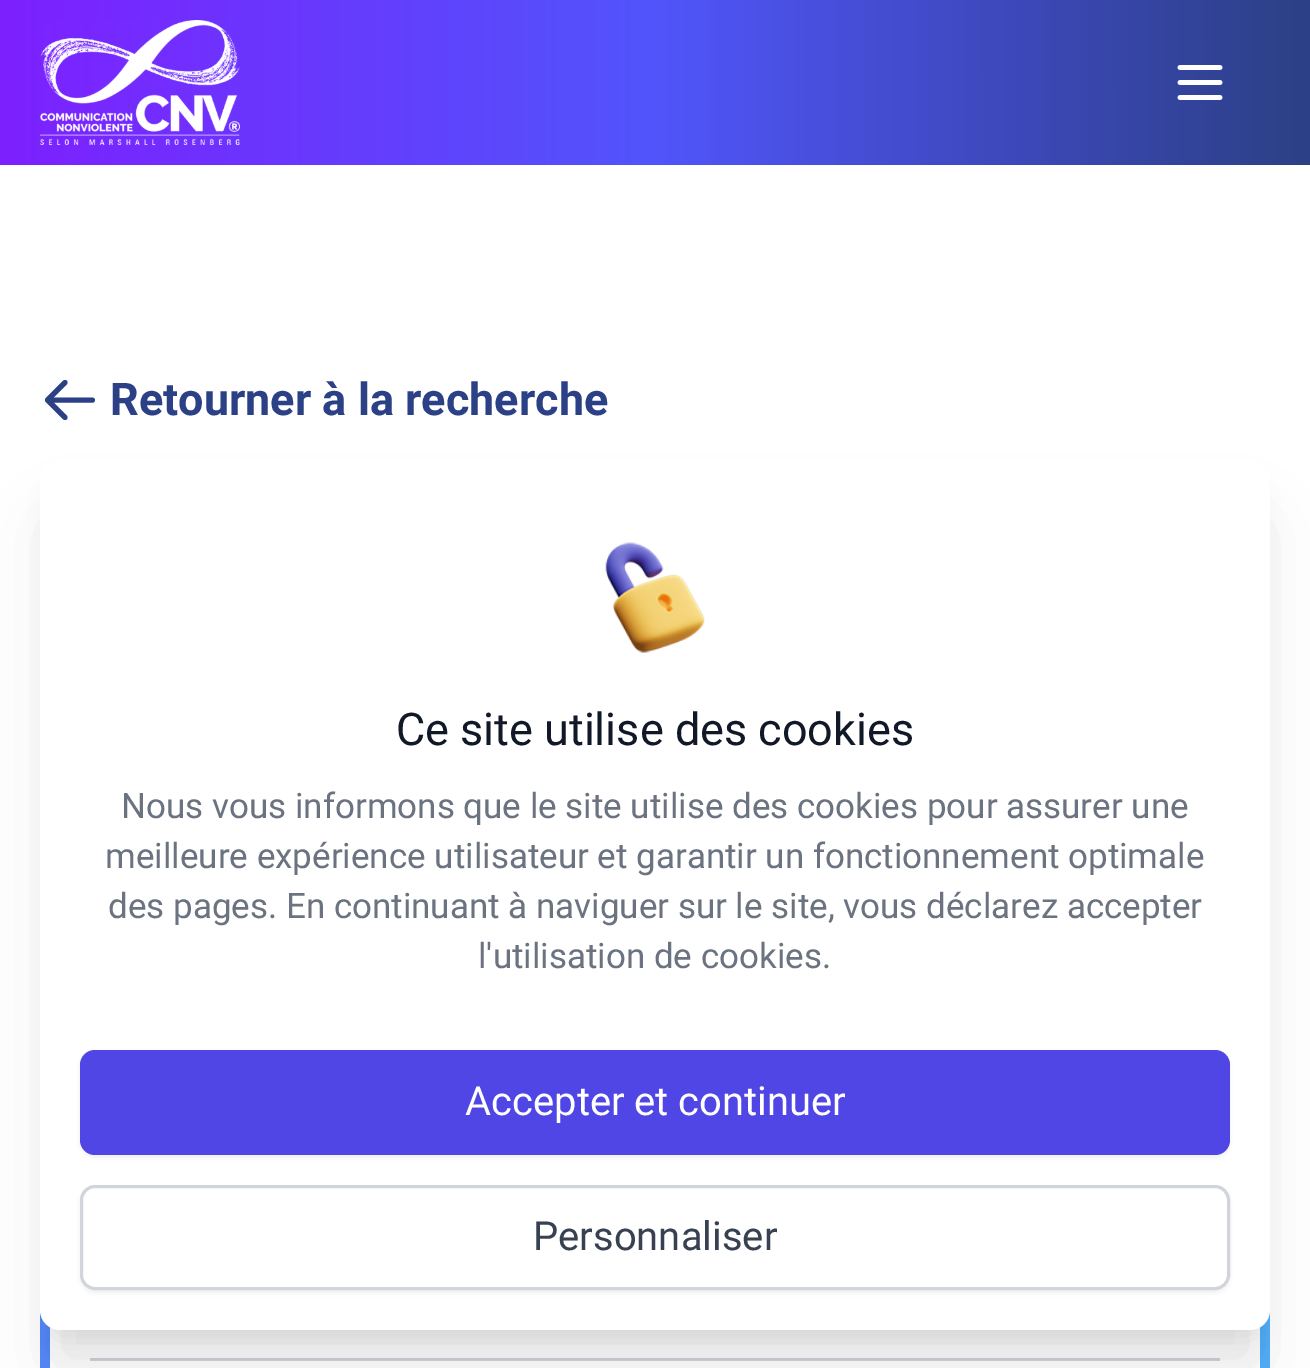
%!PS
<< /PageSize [1310 1368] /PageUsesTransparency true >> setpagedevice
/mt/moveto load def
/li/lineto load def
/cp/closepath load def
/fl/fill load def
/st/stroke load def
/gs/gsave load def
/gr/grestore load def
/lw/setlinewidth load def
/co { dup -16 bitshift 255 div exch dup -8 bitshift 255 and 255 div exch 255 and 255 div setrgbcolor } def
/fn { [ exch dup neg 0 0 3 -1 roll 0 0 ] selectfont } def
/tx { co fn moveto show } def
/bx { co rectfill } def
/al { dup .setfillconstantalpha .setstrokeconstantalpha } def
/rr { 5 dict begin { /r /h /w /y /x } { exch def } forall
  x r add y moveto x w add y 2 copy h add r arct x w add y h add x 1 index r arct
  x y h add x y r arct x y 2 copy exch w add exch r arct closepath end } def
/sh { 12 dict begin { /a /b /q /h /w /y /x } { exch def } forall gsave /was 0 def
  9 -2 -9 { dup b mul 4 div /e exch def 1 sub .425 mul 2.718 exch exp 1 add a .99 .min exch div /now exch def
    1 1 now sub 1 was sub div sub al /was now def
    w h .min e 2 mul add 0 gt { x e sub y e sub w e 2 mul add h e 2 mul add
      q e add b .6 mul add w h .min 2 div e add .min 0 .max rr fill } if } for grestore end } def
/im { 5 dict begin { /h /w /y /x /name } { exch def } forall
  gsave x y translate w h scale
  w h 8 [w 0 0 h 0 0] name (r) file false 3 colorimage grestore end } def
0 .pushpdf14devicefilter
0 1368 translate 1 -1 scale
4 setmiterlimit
0 0 1310 1368 16#FFFFFF bx
gs 0 0 mt 1310 0 li 1310 165 li 0 165 li cp clip newpath
<< /ShadingType 2 /ColorSpace /DeviceRGB /Coords [0 83 1310 82] /Extend [true true] /Function << /FunctionType 3 /Domain [0 1] /Functions [<< /FunctionType 2 /Domain [0 1] /C0 [.49 .125 1] /C1 [.318 .333 .984] /N 1 >> << /FunctionType 2 /Domain [0 1] /C0 [.318 .333 .984] /C1 [.173 .251 .522] /N 1 >>] /Bounds [.5] /Encode [0 1 0 1] >> >> shfill gr
(media/1.raw) 40 20 200 125 im
(media/2.raw) 1177 65 46 35 im
16#2C4085 co
5 lw
1 setlinecap
1 setlinejoin
65 417.5 mt 47.5 400 li 47.5 400 mt 65 382.5 li 47.5 400 mt 92.5 400 li st
gs 40 1310 mt 1270 1310 li 1270 1368 li 40 1368 li cp clip newpath
<< /ShadingType 2 /ColorSpace /DeviceRGB /Coords [40 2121 1270 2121] /Extend [true true] /Function << /FunctionType 2 /Domain [0 1] /C0 [.333 .537 .98] /C1 [.318 .69 .984] /N 1 >> >> shfill gr
50 1327 1210 41 16#FFFFFF bx
90 1358 1130 3 16#D1D5DB bx
16#000000 co
55 495 1200 840 5 12.5 .1 sh
53 523 1205 845 8 31 .1 sh
16#FFFFFF co
40 460 1230 870 20 rr fl
(media/3.raw) 605 542 100 111 im
16#000000 co
80 1053 1150 105 15 2.5 .05 sh
16#4F46E5 co
80 1050 1150 105 15 rr fl
16#000000 co
80 1188 1150 105 15 2.5 .05 sh
16#FFFFFF co
81.5 1186.5 1147 102 13.5 rr gs fl gr
16#D1D5DB co
3 lw
0 setlinecap
0 setlinejoin
st
(Retourner à la recherche) 110 415 /Roboto-Bold 45 16#2C4085 tx
(Ce site utilise des cookies) 396 745 /Roboto-Regular 45 16#111827 tx
(Nous vous informons que le site utilise des cookies pour assurer une) 121 818 /Roboto-Regular 35 16#6B7280 tx
(meilleure expérience utilisateur et garantir un fonctionnement optimale) 105 868 /Roboto-Regular 35 16#6B7280 tx
(des pages. En continuant à naviguer sur le site, vous déclarez accepter) 108 918 /Roboto-Regular 35 16#6B7280 tx
(l'utilisation de cookies.) 478 968 /Roboto-Regular 35 16#6B7280 tx
(Accepter et continuer) 465 1115 /Roboto-Regular 40 16#FFFFFF tx
(Personnaliser) 533 1250 /Roboto-Regular 40 16#374151 tx
.poppdf14devicefilter showpage
